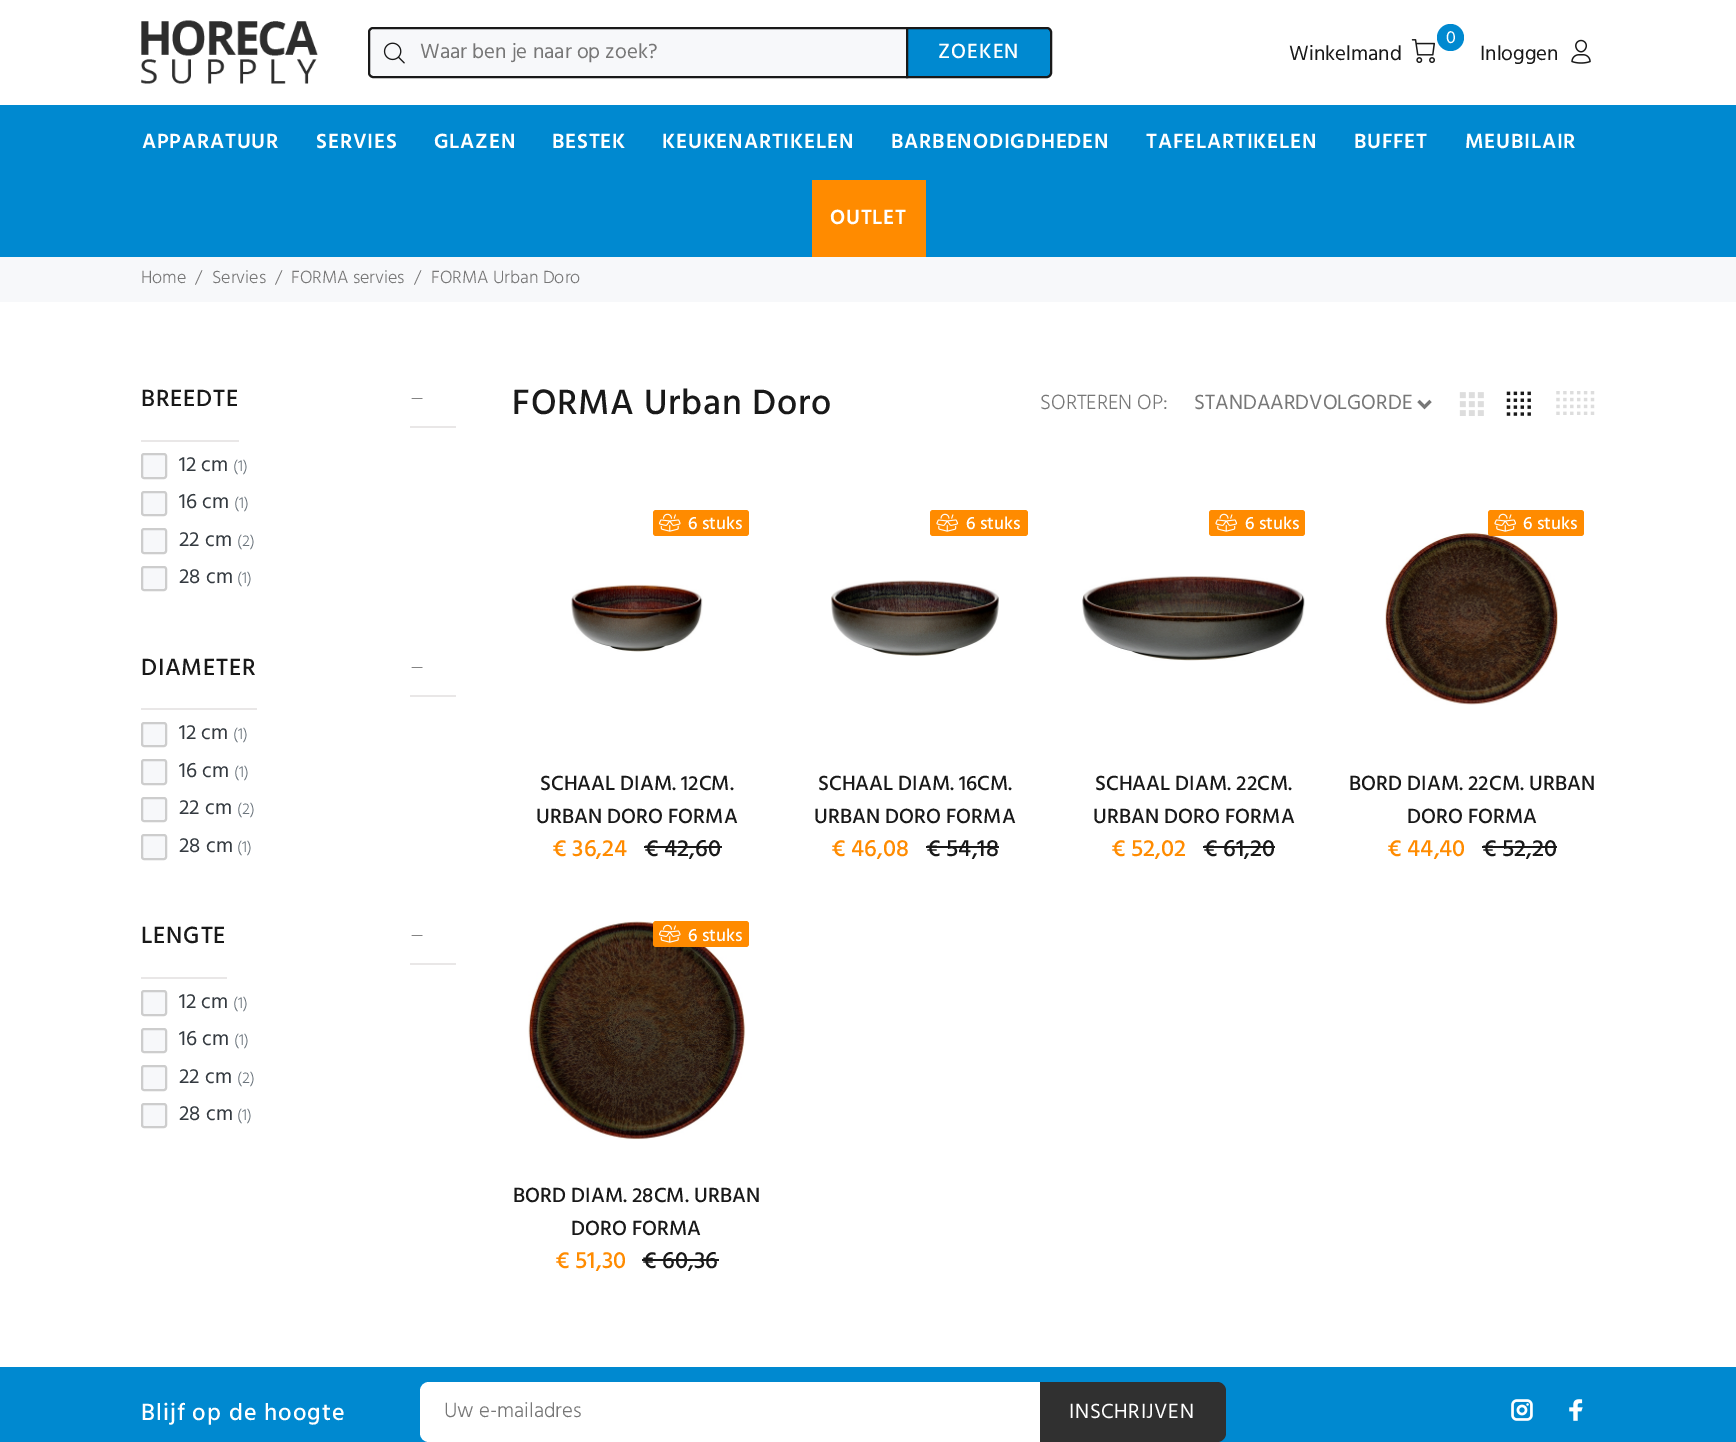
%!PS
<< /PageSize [1736 1442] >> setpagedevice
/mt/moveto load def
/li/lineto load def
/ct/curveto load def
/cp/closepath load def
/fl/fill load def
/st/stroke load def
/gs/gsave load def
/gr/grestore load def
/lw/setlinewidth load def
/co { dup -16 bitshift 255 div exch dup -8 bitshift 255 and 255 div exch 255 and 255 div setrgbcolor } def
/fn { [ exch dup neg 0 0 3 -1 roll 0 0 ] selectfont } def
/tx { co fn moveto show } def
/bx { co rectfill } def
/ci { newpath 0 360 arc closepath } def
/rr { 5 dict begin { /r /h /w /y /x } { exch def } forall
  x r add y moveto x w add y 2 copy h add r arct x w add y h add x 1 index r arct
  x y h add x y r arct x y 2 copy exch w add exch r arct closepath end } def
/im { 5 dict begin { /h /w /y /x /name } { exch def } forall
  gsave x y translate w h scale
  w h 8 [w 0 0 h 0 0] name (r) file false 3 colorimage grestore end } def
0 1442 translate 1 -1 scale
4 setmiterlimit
0 0 1736 1442 16#FFFFFF bx
(media/1.raw) 141 20 177 64 im
16#F7F8FA co
373 28 mt 907 28 li 907 77 li 373 77 li 371 77 369 75 369 73 ct 369 32 li 369 30 371 28 373 28 ct cp gs fl gr
16#191919 co
2 lw
st
(media/2.raw) 383 42 22 22 im
16#0089D0 co
907 28 mt 1047 28 li 1049 28 1051 30 1051 32 ct 1051 73 li 1051 75 1049 77 1047 77 ct 907 77 li cp gs fl gr
16#191919 co
st
16#0089D0 co
1450.5 37.5 13.5 ci fl
(media/3.raw) 1411 39 24 24 im
(media/4.raw) 1571 39 20 25 im
0 105 1736 152 16#0089D0 bx
812 180 114 77 16#FF8B00 bx
0 257 1736 45 16#F7F8FA bx
141 440 98 2 16#E9E7E7 bx
410 426 46 2 16#E9E7E7 bx
16#191919 co
422.5 398.5 mt 422.5 399 li 411.5 399 li 412 398.5 li cp fl
16#F7F8FA co
142 454 24 24 2 rr gs fl gr
16#CDCDCD co
st
16#F7F8FA co
142 492 24 23 2 rr gs fl gr
16#CDCDCD co
st
16#F7F8FA co
142 529 24 24 2 rr gs fl gr
16#CDCDCD co
st
16#F7F8FA co
142 567 24 23 2 rr gs fl gr
16#CDCDCD co
st
141 708 116 2 16#E9E7E7 bx
410 695 46 2 16#E9E7E7 bx
16#191919 co
422.5 667 mt 422.5 667.5 li 411.5 667.5 li 412 667 li cp fl
16#F7F8FA co
142 723 24 23 2 rr gs fl gr
16#CDCDCD co
st
16#F7F8FA co
142 760 24 24 2 rr gs fl gr
16#CDCDCD co
st
16#F7F8FA co
142 798 24 23 2 rr gs fl gr
16#CDCDCD co
st
16#F7F8FA co
142 835 24 24 2 rr gs fl gr
16#CDCDCD co
st
141 977 86 2 16#E9E7E7 bx
410 963 46 2 16#E9E7E7 bx
16#191919 co
422.5 935.5 mt 422.5 936 li 411.5 936 li 412 935.5 li cp fl
16#F7F8FA co
142 991 24 24 2 rr gs fl gr
16#CDCDCD co
st
16#F7F8FA co
142 1029 24 23 2 rr gs fl gr
16#CDCDCD co
st
16#F7F8FA co
142 1066 24 24 2 rr gs fl gr
16#CDCDCD co
st
16#F7F8FA co
142 1104 24 23 2 rr gs fl gr
16#CDCDCD co
st
16#777777 co
3 lw
1418.5 401 mt 1424.5 407 li 1430.5 401 li st
(media/5.raw) 1459 392 25 24 im
(media/6.raw) 1506 391 25 25 im
(media/7.raw) 1556 391 39 24 im
16#FF8B00 co
653 510 96 26 3 rr fl
(media/8.raw) 658 513 23 19 im
(media/9.raw) 571 584 132 68 im
644 846 21 2 16#191919 bx
665 846 57 2 16#191919 bx
16#FF8B00 co
930 510 98 26 3 rr fl
(media/10.raw) 936 513 23 19 im
(media/11.raw) 831 580 168 76 im
926 846 73 2 16#191919 bx
16#FF8B00 co
1209 510 96 26 3 rr fl
(media/10.raw) 1215 513 23 19 im
(media/12.raw) 1082 576 223 85 im
1203 846 72 2 16#191919 bx
(media/13.raw) 1385 532 173 173 im
16#FF8B00 co
1488 510 96 26 3 rr fl
(media/10.raw) 1494 513 23 19 im
1482 846 75 2 16#191919 bx
(media/14.raw) 528 921 218 219 im
16#FF8B00 co
653 921 96 26 3 rr fl
(media/8.raw) 658 924 23 19 im
642 1259 77 2 16#191919 bx
0 1367 1736 75 16#0089D0 bx
16#FFFFFF co
429 1383 mt 1039 1383 li 1039 1441 li 429 1441 li 424.5 1441 421 1437.5 421 1433 ct 421 1391 li 421 1386.5 424.5 1383 429 1383 ct cp gs fl gr
2 lw
st
16#303030 co
1040 1382 mt 1217 1382 li 1222 1382 1226 1386 1226 1391 ct 1226 1433 li 1226 1438 1222 1442 1217 1442 ct 1040 1442 li cp fl
(media/15.raw) 1511 1399 22 22 im
(media/16.raw) 1569 1399 14 22 im
(Waar ben je naar op zoek?) 420 58 /Hind-Regular 21 16#777777 tx
/Hind-Medium 21 fn
16#FFFFFF co
938 58 mt 1 0 (ZOEKEN) ashow
(0) 1446 43 /Hind-Regular 18 16#FFFFFF tx
(Winkelmand) 1289 60 /Hind-Regular 21 16#191919 tx
(Inloggen) 1480 60 /Hind-Regular 21 16#191919 tx
/Hind-SemiBold 21 fn
16#FFFFFF co
142 148 mt .8 0 (APPARATUUR) ashow
316 148 mt .8 0 (SERVIES) ashow
434 148 mt .8 0 (GLAZEN) ashow
552 148 mt .8 0 (BESTEK) ashow
662 148 mt .8 0 (KEUKENARTIKELEN) ashow
891 148 mt .8 0 (BARBENODIGDHEDEN) ashow
1146 148 mt .8 0 (TAFELARTIKELEN) ashow
1354 148 mt .8 0 (BUFFET) ashow
1465 148 mt .8 0 (MEUBILAIR) ashow
830 224 mt .8 0 (OUTLET) ashow
(Home) 141 283 /Hind-Light 18 16#777777 tx
(/) 195 283 /Hind-Light 18 16#777777 tx
(Servies) 212 283 /Hind-Light 18 16#777777 tx
(/) 275 283 /Hind-Light 18 16#777777 tx
(FORMA servies) 291 283 /Hind-Light 18 16#777777 tx
(/) 414 283 /Hind-Light 18 16#777777 tx
(FORMA Urban Doro) 431 283 /Hind-Light 18 16#777777 tx
/Hind-Medium 24 fn
16#191919 co
141 406 mt .75 0 (BREEDTE) ashow
(12 cm) 179 471 /Hind-Regular 21 16#343A40 tx
(\(1\)) 233 471 /Hind-Light 16 16#6C757D tx
(16 cm) 179 508 /Hind-Regular 21 16#343A40 tx
(\(1\)) 234 508 /Hind-Light 16 16#6C757D tx
(22 cm) 179 546 /Hind-Regular 21 16#343A40 tx
(\(2\)) 237 546 /Hind-Light 16 16#6C757D tx
(28 cm) 179 583 /Hind-Regular 21 16#343A40 tx
(\(1\)) 237 583 /Hind-Light 16 16#6C757D tx
/Hind-Medium 24 fn
16#191919 co
141 675 mt .75 0 (DIAMETER) ashow
(12 cm) 179 739 /Hind-Regular 21 16#343A40 tx
(\(1\)) 233 739 /Hind-Light 16 16#6C757D tx
(16 cm) 179 777 /Hind-Regular 21 16#343A40 tx
(\(1\)) 234 777 /Hind-Light 16 16#6C757D tx
(22 cm) 179 814 /Hind-Regular 21 16#343A40 tx
(\(2\)) 237 814 /Hind-Light 16 16#6C757D tx
(28 cm) 179 852 /Hind-Regular 21 16#343A40 tx
(\(1\)) 237 852 /Hind-Light 16 16#6C757D tx
/Hind-Medium 24 fn
16#191919 co
141 943 mt .75 0 (LENGTE) ashow
(12 cm) 179 1008 /Hind-Regular 21 16#343A40 tx
(\(1\)) 233 1008 /Hind-Light 16 16#6C757D tx
(16 cm) 179 1045 /Hind-Regular 21 16#343A40 tx
(\(1\)) 234 1045 /Hind-Light 16 16#6C757D tx
(22 cm) 179 1083 /Hind-Regular 21 16#343A40 tx
(\(2\)) 237 1083 /Hind-Light 16 16#6C757D tx
(28 cm) 179 1120 /Hind-Regular 21 16#343A40 tx
(\(1\)) 237 1120 /Hind-Light 16 16#6C757D tx
/Hind-Medium 36 fn
16#191919 co
512 414 mt .75 0 (FORMA Urban Doro) ashow
(SORTEREN OP:) 1040 409 /Hind-Light 21 16#777777 tx
(STANDAARDVOLGORDE) 1194 409 /Hind-Regular 21 16#777777 tx
(6 stuks) 688 529 /Hind-Medium 18 16#FFFFFF tx
(SCHAAL DIAM. 12CM.) 540 790 /Hind-Medium 21 16#191919 tx
(URBAN DORO FORMA) 536 823 /Hind-Medium 21 16#191919 tx
(€ 36,24) 552 856 /Hind-Medium 24 16#FF8B00 tx
(€) 644 856 /Hind-Medium 24 16#191919 tx
(42,60) 664 856 /Hind-Medium 24 16#191919 tx
(6 stuks) 966 529 /Hind-Medium 18 16#FFFFFF tx
(SCHAAL DIAM. 16CM.) 818 790 /Hind-Medium 21 16#191919 tx
(URBAN DORO FORMA) 814 823 /Hind-Medium 21 16#191919 tx
(€ 46,08) 831 856 /Hind-Medium 24 16#FF8B00 tx
(€ 54,18) 926 856 /Hind-Medium 24 16#191919 tx
(6 stuks) 1245 529 /Hind-Medium 18 16#FFFFFF tx
(SCHAAL DIAM. 22CM.) 1095 790 /Hind-Medium 21 16#191919 tx
(URBAN DORO FORMA) 1093 823 /Hind-Medium 21 16#191919 tx
(€ 52,02) 1111 856 /Hind-Medium 24 16#FF8B00 tx
(€ 61,20) 1203 856 /Hind-Medium 24 16#191919 tx
(6 stuks) 1523 529 /Hind-Medium 18 16#FFFFFF tx
(BORD DIAM. 22CM. URBAN) 1349 790 /Hind-Medium 21 16#191919 tx
(DORO FORMA) 1407 823 /Hind-Medium 21 16#191919 tx
(€ 44,40) 1387 856 /Hind-Medium 24 16#FF8B00 tx
(€ 52,20) 1482 856 /Hind-Medium 24 16#191919 tx
(6 stuks) 688 941 /Hind-Medium 18 16#FFFFFF tx
(BORD DIAM. 28CM. URBAN) 513 1202 /Hind-Medium 21 16#191919 tx
(DORO FORMA) 571 1235 /Hind-Medium 21 16#191919 tx
(€ 51,30) 555 1268 /Hind-Medium 24 16#FF8B00 tx
(€ 60,36) 642 1268 /Hind-Medium 24 16#191919 tx
16#FFFFFF co
141 1420 mt 1 0 (Blijf op de hoogte) ashow
(Uw e-mailadres) 444 1417 /Hind-Light 21 16#777777 tx
/Hind-Regular 21 fn
16#FFFFFF co
1069 1418 mt .6 0 (INSCHRIJVEN) ashow
showpage
